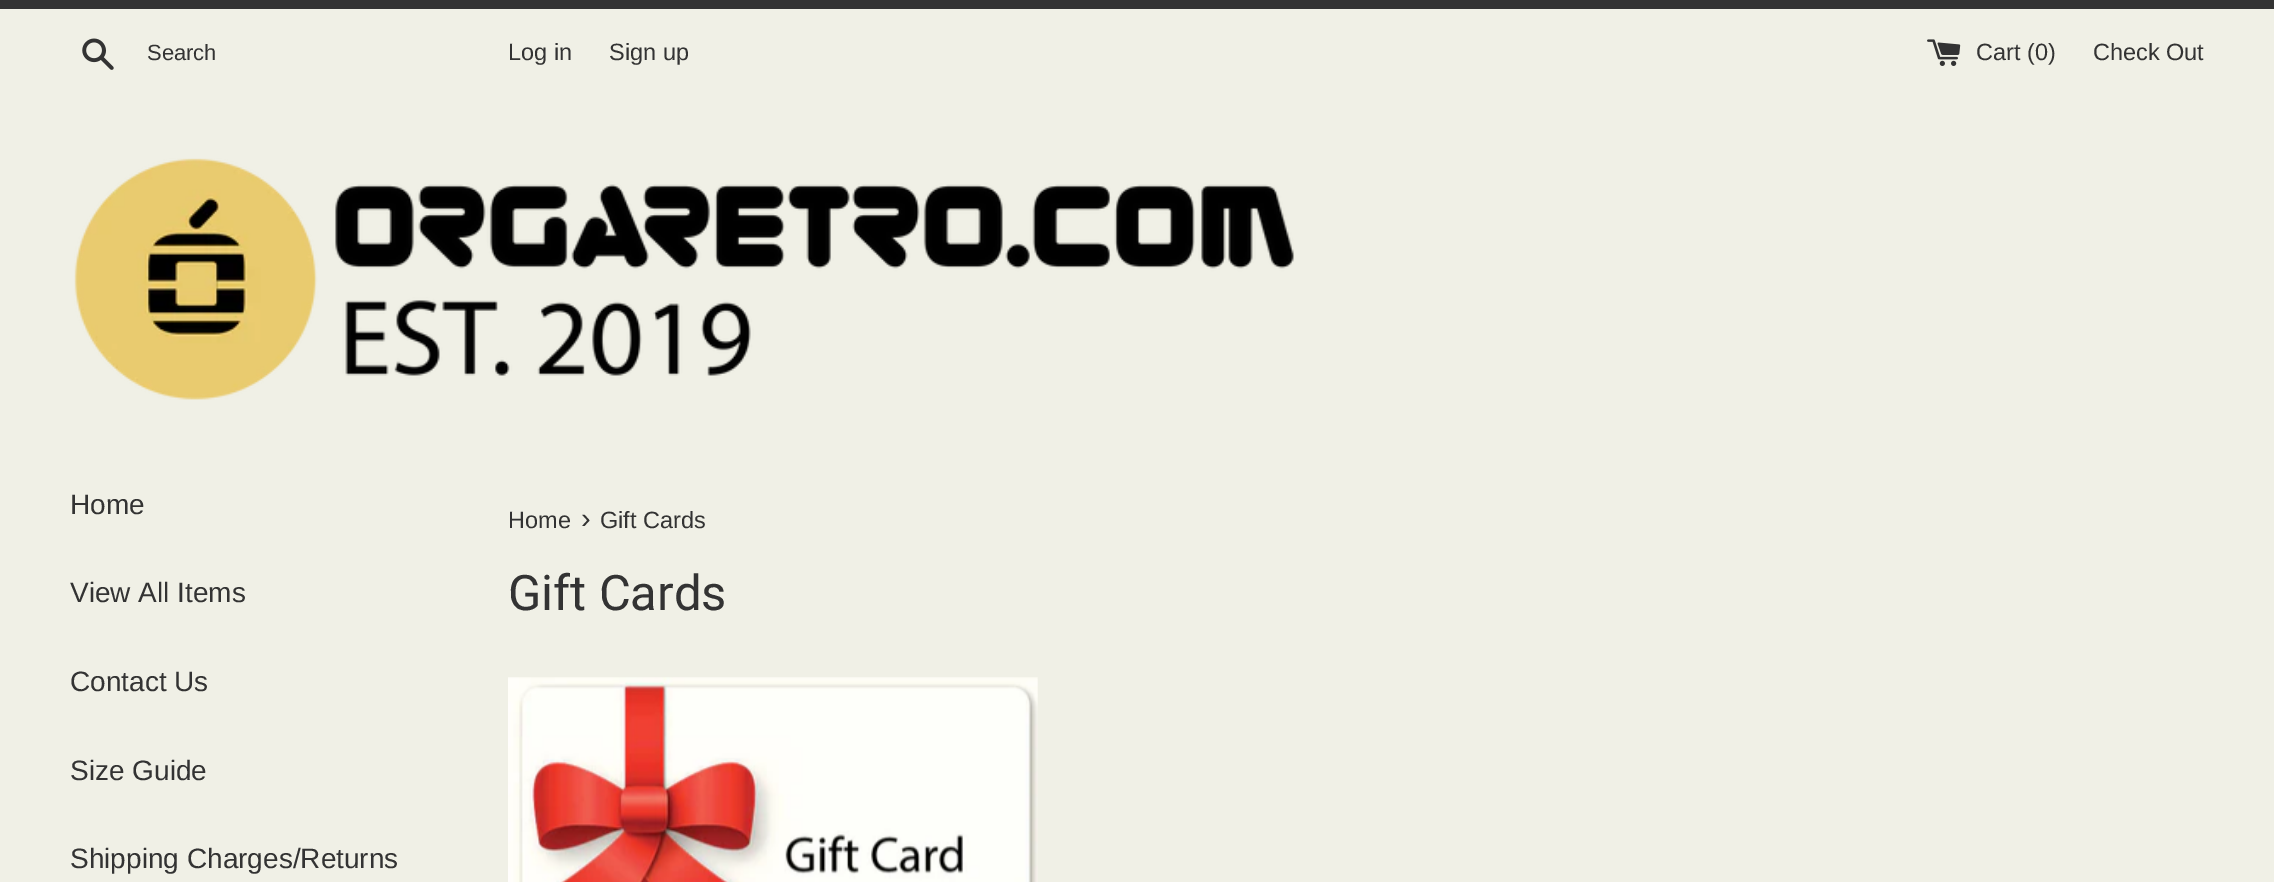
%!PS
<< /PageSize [2274 882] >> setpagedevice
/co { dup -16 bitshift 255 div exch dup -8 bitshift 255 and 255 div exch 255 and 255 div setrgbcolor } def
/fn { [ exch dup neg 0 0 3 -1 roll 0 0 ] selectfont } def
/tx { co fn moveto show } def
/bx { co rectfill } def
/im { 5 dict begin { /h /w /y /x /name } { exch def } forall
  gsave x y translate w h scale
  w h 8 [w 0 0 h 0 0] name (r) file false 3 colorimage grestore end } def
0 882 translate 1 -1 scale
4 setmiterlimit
0 0 2274 882 16#F0F0E6 bx
0 0 2274 9 16#333333 bx
(media/1.raw) 82 38 32 32 im
(media/2.raw) 1927 39 34 27 im
(media/3.raw) 74 158 1220 242 im
(media/4.raw) 508 677 530 205 im
(Search) 147 60 /LiberationSans-Regular 22 16#333333 tx
(Log in) 508 60 /LiberationSans-Regular 23.5 16#333333 tx
(Sign up) 609 60 /LiberationSans-Regular 23.5 16#333333 tx
(Cart \(0\)) 1976 60 /LiberationSans-Regular 23.5 16#333333 tx
(Check Out) 2093 60 /LiberationSans-Regular 23.5 16#333333 tx
(Home) 70 514 /LiberationSans-Regular 28 16#333333 tx
(View All Items) 70 602 /LiberationSans-Regular 28 16#333333 tx
(Contact Us) 70 691 /LiberationSans-Regular 28 16#333333 tx
(Size Guide) 70 780 /LiberationSans-Regular 28 16#333333 tx
(Shipping Charges/Returns) 70 868 /LiberationSans-Regular 28 16#333333 tx
(Home) 508 528 /LiberationSans-Regular 23.5 16#333333 tx
(›) 581 528 /LiberationSans-Regular 29 16#333333 tx
(Gift Cards) 600 528 /LiberationSans-Regular 23.5 16#333333 tx
(Gift Cards) 508 610 /Roboto-Regular 49 16#333333 tx
showpage
